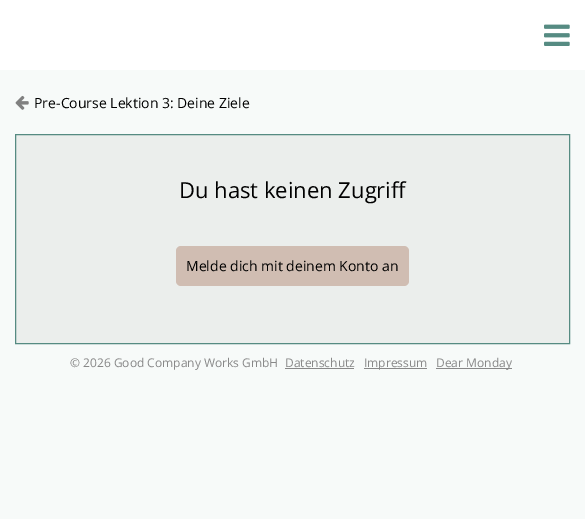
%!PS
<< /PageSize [585 519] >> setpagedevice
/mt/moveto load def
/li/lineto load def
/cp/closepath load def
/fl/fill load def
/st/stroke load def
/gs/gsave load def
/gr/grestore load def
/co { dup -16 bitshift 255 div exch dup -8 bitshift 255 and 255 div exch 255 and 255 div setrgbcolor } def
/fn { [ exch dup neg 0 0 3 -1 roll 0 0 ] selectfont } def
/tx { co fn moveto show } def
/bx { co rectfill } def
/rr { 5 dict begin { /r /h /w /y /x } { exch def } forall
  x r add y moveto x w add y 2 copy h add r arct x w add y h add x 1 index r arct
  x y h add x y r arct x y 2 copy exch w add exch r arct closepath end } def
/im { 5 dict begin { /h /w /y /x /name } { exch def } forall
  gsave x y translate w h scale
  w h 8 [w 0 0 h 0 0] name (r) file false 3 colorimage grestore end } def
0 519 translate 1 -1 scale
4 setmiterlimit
0 0 585 519 16#F7FAF9 bx
0 0 585 70 16#FFFFFF bx
(media/1.raw) 544 24 26 22 im
(media/2.raw) 15 95 14 15 im
16#EBEEEC co
15.5 134.5 mt 569.5 134.5 li 569.5 343.5 li 15.5 343.5 li cp gs fl gr
16#568B82 co
st
16#D0BDB2 co
176 246 233 40 5 rr fl
285 368 69 1 16#888888 bx
364 368 63 1 16#888888 bx
436 368 76 1 16#888888 bx
(Pre-Course Lektion 3: Deine Ziele) 34 108 /OpenSans-Regular 14 16#000000 tx
(Du hast keinen Zugriff) 179 198 /OpenSans-Regular 22 16#000000 tx
(Melde dich mit deinem Konto an) 186 271 /OpenSans-Regular 14 16#000000 tx
(© 2026 Good Company Works GmbH) 70 367 /OpenSans-Regular 12 16#888888 tx
(Datenschutz) 285 367 /OpenSans-Regular 12 16#888888 tx
(Impressum) 364 367 /OpenSans-Regular 12 16#888888 tx
(Dear Monday) 436 367 /OpenSans-Regular 12 16#888888 tx
showpage
